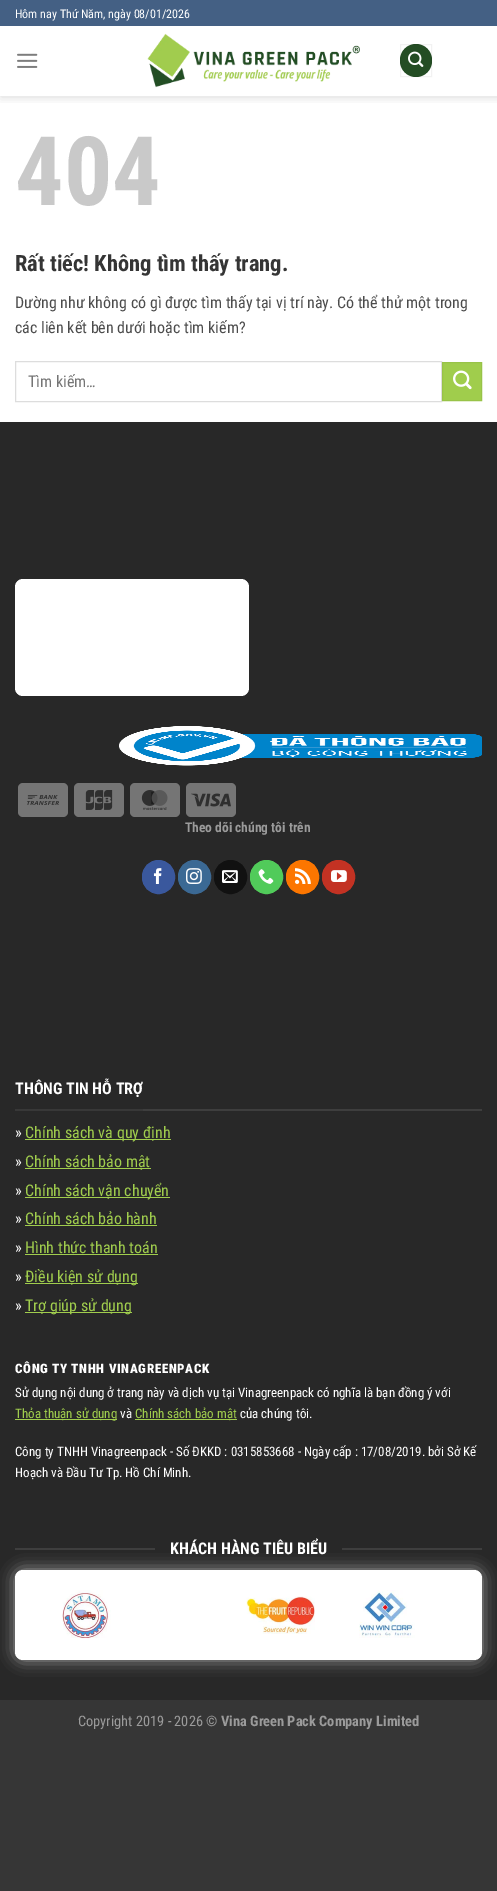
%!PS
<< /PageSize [497 1891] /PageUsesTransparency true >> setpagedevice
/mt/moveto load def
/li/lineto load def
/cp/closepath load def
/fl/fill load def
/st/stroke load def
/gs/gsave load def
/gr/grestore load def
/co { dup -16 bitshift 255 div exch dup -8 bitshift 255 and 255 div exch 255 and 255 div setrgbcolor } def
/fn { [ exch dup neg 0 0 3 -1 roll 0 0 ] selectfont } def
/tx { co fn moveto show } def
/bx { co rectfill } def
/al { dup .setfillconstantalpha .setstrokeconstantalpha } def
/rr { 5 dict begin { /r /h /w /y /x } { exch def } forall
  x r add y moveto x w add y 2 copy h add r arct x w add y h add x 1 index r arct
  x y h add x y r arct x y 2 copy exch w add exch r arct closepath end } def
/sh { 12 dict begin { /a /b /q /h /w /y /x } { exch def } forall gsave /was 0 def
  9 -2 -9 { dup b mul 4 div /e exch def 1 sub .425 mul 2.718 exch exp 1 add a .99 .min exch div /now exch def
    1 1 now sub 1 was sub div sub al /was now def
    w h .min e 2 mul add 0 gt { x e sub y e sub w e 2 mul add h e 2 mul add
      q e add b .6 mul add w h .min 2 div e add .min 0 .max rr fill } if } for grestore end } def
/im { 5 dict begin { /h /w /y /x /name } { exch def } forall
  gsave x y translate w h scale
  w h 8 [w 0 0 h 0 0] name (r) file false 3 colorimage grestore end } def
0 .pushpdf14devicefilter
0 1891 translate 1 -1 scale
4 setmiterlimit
0 0 497 1891 16#363636 bx
0 26 497 396 16#FFFFFF bx
gs
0 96 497 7 rectclip
16#000000 co
1 1 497 96 0 5 .15 sh
gr
0 0 497 26 16#446084 bx
(media/1.raw) 17 53 21 15 im
(media/2.raw) 147 33 213 55 im
16#244D24 co
400 44 32 33 16 rr fl
0.05 al
16#000000 co
400.5 44.5 31 32 rectstroke
1 al
(media/3.raw) 408 51 16 16 im
16#DDDDDD co
15.5 361.5 426 40 rectstroke
16#A0CD4C co
442.5 362.5 mt 481.5 362.5 li 481.5 400.5 li 442.5 400.5 li cp gs fl gr
16#98C348 co
st
(media/4.raw) 453 370 19 20 im
0 422 497 1278 16#282828 bx
16#FFFFFF co
15 579 234 117 8 rr fl
(media/5.raw) 119 726 363 40 im
16#757575 co
18 783 50 34 5 rr fl
(media/6.raw) 27 795 32 10 im
74 783 50 34 5 rr fl
(media/7.raw) 85 790 28 20 im
130 783 50 34 5 rr fl
(media/8.raw) 141 790 27 20 im
186 783 50 34 5 rr fl
(media/9.raw) 191 793 40 14 im
16#3A589D co
142.5 860.5 32 33 16 rr gs fl gr
st
(media/10.raw) 153 868 9 16 im
16#3B6994 co
178.5 860.5 32 33 16 rr gs fl gr
st
(media/11.raw) 186 868 16 16 im
16#111111 co
214.5 860.5 32 33 16 rr gs fl gr
st
(media/12.raw) 222 870 16 13 im
16#51CB5A co
250.5 860.5 32 33 16 rr gs fl gr
st
(media/13.raw) 258 869 16 15 im
16#FC7600 co
286.5 860.5 32 33 16 rr gs fl gr
st
(media/14.raw) 295 868 16 16 im
16#C33223 co
322.5 860.5 32 33 16 rr gs fl gr
st
(media/15.raw) 331 870 16 12 im
143 1109 339 2 16#3E3E3E bx
15 1109 128 2 16#383838 bx
25 1139 146 1 16#A0CD4D bx
25 1168 126 1 16#A0CD4D bx
25 1197 145 1 16#A0CD4D bx
25 1225 132 1 16#A0CD4D bx
25 1254 133 1 16#A0CD4D bx
25 1283 113 1 16#A0CD4D bx
25 1312 107 1 16#A0CD4D bx
15 1419 102 1 16#A0CD4D bx
135 1419 102 1 16#A0CD4D bx
15 1548 140 2 16#3E3E3E bx
342 1548 140 2 16#3E3E3E bx
16#C0C0C0 co
15 1570 467 90 8 7.5 .8 sh
16#FFFFFF co
15 1570 467 90 8 rr fl
(media/16.raw) 62 1590 49 49 im
(media/17.raw) 246 1596 69 38 im
(media/18.raw) 359 1590 56 48 im
(Hôm nay Thứ Năm, ngày 08/01/2026) 15 18 /RobotoCondensed-Regular 12 16#FFFFFF tx
(404) 15 205 /RobotoCondensed-Bold 96 16#C9C9C9 tx
(Rất tiếc! Không tìm thấy trang.) 15 271 /RobotoCondensed-Bold 22.4 16#353535 tx
(Dường như không có gì được tìm thấy tại vị trí này. Có thể thử một trong) 15 308 /RobotoCondensed-Regular 16 16#4C4C4C tx
(các liên kết bên dưới hoặc tìm kiếm?) 15 333 /RobotoCondensed-Regular 16 16#4C4C4C tx
(Tìm kiếm…) 28 387 /RobotoCondensed-Regular 16 16#757575 tx
(Theo dõi chúng tôi trên) 185 832 /RobotoCondensed-Bold 13.5 16#9B9B9B tx
(THÔNG TIN HỖ TRỢ) 15 1094 /RobotoCondensed-Bold 16 16#FFFFFF tx
(») 15 1138 /RobotoCondensed-Regular 16 16#FFFFFF tx
(Chính sách và quy định) 25 1138 /RobotoCondensed-Regular 16 16#A0CD4D tx
(») 15 1167 /RobotoCondensed-Regular 16 16#FFFFFF tx
(Chính sách bảo mật) 25 1167 /RobotoCondensed-Regular 16 16#A0CD4D tx
(») 15 1196 /RobotoCondensed-Regular 16 16#FFFFFF tx
(Chính sách vận chuyển) 25 1196 /RobotoCondensed-Regular 16 16#A0CD4D tx
(») 15 1224 /RobotoCondensed-Regular 16 16#FFFFFF tx
(Chính sách bảo hành) 25 1224 /RobotoCondensed-Regular 16 16#A0CD4D tx
(») 15 1253 /RobotoCondensed-Regular 16 16#FFFFFF tx
(Hình thức thanh toán) 25 1253 /RobotoCondensed-Regular 16 16#A0CD4D tx
(») 15 1282 /RobotoCondensed-Regular 16 16#FFFFFF tx
(Điều kiện sử dụng) 25 1282 /RobotoCondensed-Regular 16 16#A0CD4D tx
(») 15 1311 /RobotoCondensed-Regular 16 16#FFFFFF tx
(Trợ giúp sử dụng) 25 1311 /RobotoCondensed-Regular 16 16#A0CD4D tx
/RobotoCondensed-Black 13 fn
16#FFFFFF co
15 1373 mt .65 0 (CÔNG TY TNHH VINAGREENPACK) ashow
(Sử dụng nội dung ở trang này và dịch vụ tại Vinagreenpack có nghĩa là bạn đồng ý với) 15 1397 /RobotoCondensed-Regular 13 16#FFFFFF tx
(Thỏa thuận sử dụng) 15 1418 /RobotoCondensed-Regular 13 16#A0CD4D tx
(và) 120 1418 /RobotoCondensed-Regular 13 16#FFFFFF tx
(Chính sách bảo mật) 135 1418 /RobotoCondensed-Regular 13 16#A0CD4D tx
(của chúng tôi.) 240 1418 /RobotoCondensed-Regular 13 16#FFFFFF tx
(Công ty TNHH Vinagreenpack - Số ĐKKD : 0315853668 - Ngày cấp : 17/08/2019. bởi Sở Kế) 15 1456 /RobotoCondensed-Regular 13 16#FFFFFF tx
(Hoạch và Đầu Tư Tp. Hồ Chí Minh.) 15 1477 /RobotoCondensed-Regular 13 16#FFFFFF tx
(KHÁCH HÀNG TIÊU BIỂU) 170 1554 /RobotoCondensed-Bold 16 16#FFFFFF tx
(Copyright 2019 - 2026 ©) 78 1726 /RobotoCondensed-Regular 14.4 16#9B9B9B tx
(Vina Green Pack Company Limited) 221 1726 /RobotoCondensed-Bold 14.4 16#9B9B9B tx
.poppdf14devicefilter showpage
